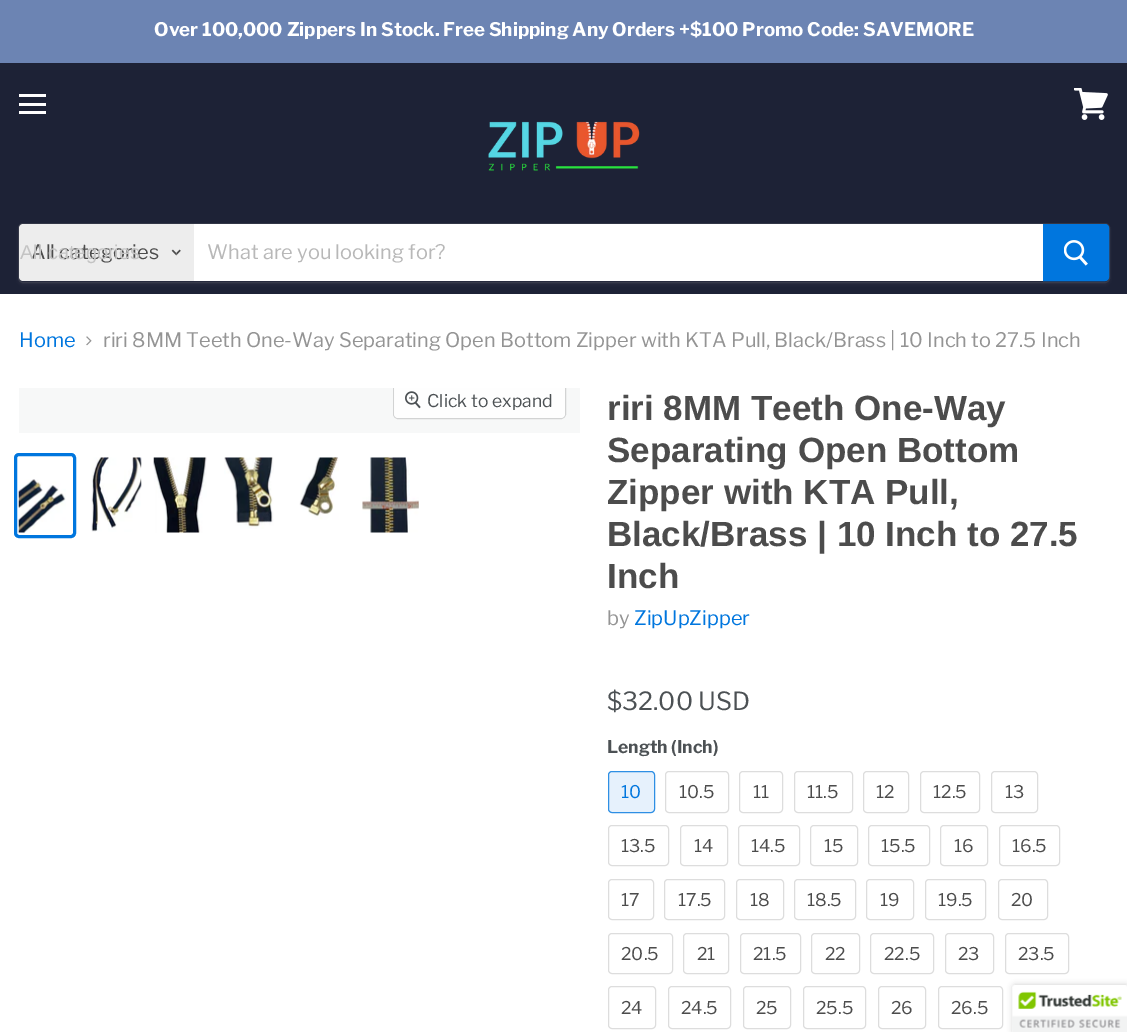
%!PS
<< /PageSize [1127 1032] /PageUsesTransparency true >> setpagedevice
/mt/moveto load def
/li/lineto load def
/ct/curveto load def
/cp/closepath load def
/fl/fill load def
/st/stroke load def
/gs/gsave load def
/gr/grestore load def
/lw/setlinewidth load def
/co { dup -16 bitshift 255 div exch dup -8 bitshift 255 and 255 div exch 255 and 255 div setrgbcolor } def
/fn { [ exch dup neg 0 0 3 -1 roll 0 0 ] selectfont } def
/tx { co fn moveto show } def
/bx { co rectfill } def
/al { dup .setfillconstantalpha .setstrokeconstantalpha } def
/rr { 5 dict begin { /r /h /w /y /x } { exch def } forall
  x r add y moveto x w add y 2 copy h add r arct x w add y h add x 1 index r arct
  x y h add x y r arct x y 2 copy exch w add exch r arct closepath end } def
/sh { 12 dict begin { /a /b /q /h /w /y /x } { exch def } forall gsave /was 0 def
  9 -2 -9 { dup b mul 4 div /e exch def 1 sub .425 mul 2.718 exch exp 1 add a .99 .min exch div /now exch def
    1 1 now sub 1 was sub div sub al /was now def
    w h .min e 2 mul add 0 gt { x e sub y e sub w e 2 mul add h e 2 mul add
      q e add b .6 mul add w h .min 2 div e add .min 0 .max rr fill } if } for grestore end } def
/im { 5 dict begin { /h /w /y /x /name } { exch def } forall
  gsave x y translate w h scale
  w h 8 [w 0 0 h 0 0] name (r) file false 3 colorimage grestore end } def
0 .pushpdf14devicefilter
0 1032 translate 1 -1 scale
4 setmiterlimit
0 0 1127 1032 16#FFFFFF bx
0 0 1127 63 16#6C84B3 bx
0 63 1127 231 16#1D2236 bx
19 94 27 3 16#FFFFFF bx
19 103 27 3 16#FFFFFF bx
19 111 27 3 16#FFFFFF bx
(media/1.raw) 1074 88 34 32 im
(media/2.raw) 488 121 152 50 im
16#7F7F7F co
18 225 1092 60 5 2 .11 sh
0.2 al
18.5 223.5 1091 59 4.5 rr st
1 al
16#EDEDED co
23 224 mt 194 224 li 194 281 li 23 281 li 21 281 19 279 19 277 ct 19 228 li 19 226 21 224 23 224 ct cp fl
(media/3.raw) 171 249 10 7 im
194 224 849 57 16#FFFFFF bx
16#0076DE co
1043.5 224.5 mt 1105 224.5 li 1107 224.5 1108.5 226 1108.5 228 ct 1108.5 277 li 1108.5 279 1107 280.5 1105 280.5 ct 1043.5 280.5 li cp gs fl gr
st
(media/4.raw) 1064 240 24 26 im
(media/5.raw) 86 336 6 10 im
19 388 561 45 16#F7F8F8 bx
gs
19 388 561 45 rectclip
16#D2D3D3 co
393.5 381.5 172 37 4.5 rr st
gr
0.9 al
16#FFFFFF co
394 388 mt 565 388 li 565 414 li 565 416 563 418 561 418 ct 398 418 li 396 418 394 416 394 414 ct cp fl
1 al
(media/6.raw) 405 391 16 18 im
16#0076DE co
3 lw
15.5 454.5 59 82 3.5 rr st
(media/7.raw) 18 479 48 54 im
(media/8.raw) 91 457 51 75 im
(media/9.raw) 153 457 54 76 im
(media/10.raw) 224 457 50 72 im
(media/11.raw) 299 457 40 63 im
(media/12.raw) 362 457 57 76 im
16#E6F1FC co
608 771 47 42 4 rr fl
0.8 al
16#0076DE co
1 lw
608.5 771.5 46 41 3.5 rr st
1 al
16#DDDDDD co
665.5 771.5 63 41 3.5 rr st
739.5 771.5 43 41 3.5 rr st
794.5 771.5 58 41 3.5 rr st
863.5 771.5 45 41 3.5 rr st
920.5 771.5 59 41 3.5 rr st
991.5 771.5 46 41 3.5 rr st
608.5 825.5 60 40 3.5 rr st
680.5 825.5 47 40 3.5 rr st
738.5 825.5 61 40 3.5 rr st
810.5 825.5 47 40 3.5 rr st
868.5 825.5 61 40 3.5 rr st
940.5 825.5 47 40 3.5 rr st
999.5 825.5 60 40 3.5 rr st
608.5 879.5 45 40 3.5 rr st
664.5 879.5 60 40 3.5 rr st
736.5 879.5 47 40 3.5 rr st
794.5 879.5 61 40 3.5 rr st
866.5 879.5 47 40 3.5 rr st
925.5 879.5 60 40 3.5 rr st
998.5 879.5 49 40 3.5 rr st
608.5 933.5 64 40 3.5 rr st
683.5 933.5 45 40 3.5 rr st
740.5 933.5 60 40 3.5 rr st
811.5 933.5 48 40 3.5 rr st
870.5 933.5 63 40 3.5 rr st
945.5 933.5 48 40 3.5 rr st
1005.5 933.5 63 40 3.5 rr st
608.5 986.5 47 42 3.5 rr st
668.5 986.5 62 42 3.5 rr st
743.5 986.5 47 42 3.5 rr st
803.5 986.5 62 42 3.5 rr st
878.5 986.5 47 42 3.5 rr st
938.5 986.5 64 42 3.5 rr st
1013.5 986.5 85 42 3.5 rr st
16#000000 co
1013 985 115 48 2.5 3 .2 sh
16#FFFFFF co
1015.5 985 mt 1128 985 li 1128 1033 li 1013 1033 li 1013 987.5 li 1013 986 1014 985 1015.5 985 ct cp fl
(media/13.raw) 1012 985 115 47 im
(Over 100,000 Zippers In Stock. Free Shipping Any Orders +$100 Promo Code: SAVEMORE) 154 36 /LibreFranklin-Bold 18.75 16#FFFFFF tx
(All categories) 31 259 /LibreFranklin-Regular 20 16#4C4C4C tx
(All categories) 20 259 /LiberationSans-Regular 20 16#C4C4C4 tx
(What are you looking for?) 207 259 /LibreFranklin-Regular 20 16#B8B8B8 tx
(Home) 19 347 /LibreFranklin-Regular 20 16#0076DE tx
(riri 8MM Teeth One-Way Separating Open Bottom Zipper with KTA Pull, Black/Brass | 10 Inch to 27.5 Inch) 103 347 /LibreFranklin-Regular 20 16#949494 tx
(Click to expand) 427 407 /LibreFranklin-Regular 17.5 16#4C5154 tx
(riri 8MM Teeth One-Way) 607 420 /Arimo-Bold 35 16#4C4C4C tx
(Separating Open Bottom) 607 462 /Arimo-Bold 35 16#4C4C4C tx
(Zipper with KTA Pull,) 607 504 /Arimo-Bold 35 16#4C4C4C tx
(Black/Brass | 10 Inch to 27.5) 607 546 /Arimo-Bold 35 16#4C4C4C tx
(Inch) 607 588 /Arimo-Bold 35 16#4C4C4C tx
(by) 607 625 /LibreFranklin-Regular 20 16#949494 tx
(ZipUpZipper) 634 625 /LibreFranklin-Regular 20 16#0076DE tx
($32.00 USD) 607 710 /LibreFranklin-Regular 25 16#4C5154 tx
(Length \(Inch\)) 607 753 /LibreFranklin-Bold 17.5 16#4C5154 tx
(10) 621 798 /LibreFranklin-Regular 17.5 16#0076DE tx
(10.5) 679 798 /LibreFranklin-Regular 17.5 16#4C4C4C tx
(11) 753 798 /LibreFranklin-Regular 17.5 16#4C4C4C tx
(11.5) 807 798 /LibreFranklin-Regular 17.5 16#4C4C4C tx
(12) 876 798 /LibreFranklin-Regular 17.5 16#4C4C4C tx
(12.5) 933 798 /LibreFranklin-Regular 17.5 16#4C4C4C tx
(13) 1005 798 /LibreFranklin-Regular 17.5 16#4C4C4C tx
(13.5) 621 852 /LibreFranklin-Regular 17.5 16#4C4C4C tx
(14) 694 852 /LibreFranklin-Regular 17.5 16#4C4C4C tx
(14.5) 751 852 /LibreFranklin-Regular 17.5 16#4C4C4C tx
(15) 824 852 /LibreFranklin-Regular 17.5 16#4C4C4C tx
(15.5) 881 852 /LibreFranklin-Regular 17.5 16#4C4C4C tx
(16) 954 852 /LibreFranklin-Regular 17.5 16#4C4C4C tx
(16.5) 1012 852 /LibreFranklin-Regular 17.5 16#4C4C4C tx
(17) 621 906 /LibreFranklin-Regular 17.5 16#4C4C4C tx
(17.5) 678 906 /LibreFranklin-Regular 17.5 16#4C4C4C tx
(18) 750 906 /LibreFranklin-Regular 17.5 16#4C4C4C tx
(18.5) 807 906 /LibreFranklin-Regular 17.5 16#4C4C4C tx
(19) 880 906 /LibreFranklin-Regular 17.5 16#4C4C4C tx
(19.5) 938 906 /LibreFranklin-Regular 17.5 16#4C4C4C tx
(20) 1011 906 /LibreFranklin-Regular 17.5 16#4C4C4C tx
(20.5) 621 960 /LibreFranklin-Regular 17.5 16#4C4C4C tx
(21) 697 960 /LibreFranklin-Regular 17.5 16#4C4C4C tx
(21.5) 753 960 /LibreFranklin-Regular 17.5 16#4C4C4C tx
(22) 825 960 /LibreFranklin-Regular 17.5 16#4C4C4C tx
(22.5) 884 960 /LibreFranklin-Regular 17.5 16#4C4C4C tx
(23) 958 960 /LibreFranklin-Regular 17.5 16#4C4C4C tx
(23.5) 1018 960 /LibreFranklin-Regular 17.5 16#4C4C4C tx
(24) 621 1014 /LibreFranklin-Regular 17.5 16#4C4C4C tx
(24.5) 681 1014 /LibreFranklin-Regular 17.5 16#4C4C4C tx
(25) 756 1014 /LibreFranklin-Regular 17.5 16#4C4C4C tx
(25.5) 816 1014 /LibreFranklin-Regular 17.5 16#4C4C4C tx
(26) 891 1014 /LibreFranklin-Regular 17.5 16#4C4C4C tx
(26.5) 951 1014 /LibreFranklin-Regular 17.5 16#4C4C4C tx
.poppdf14devicefilter showpage
